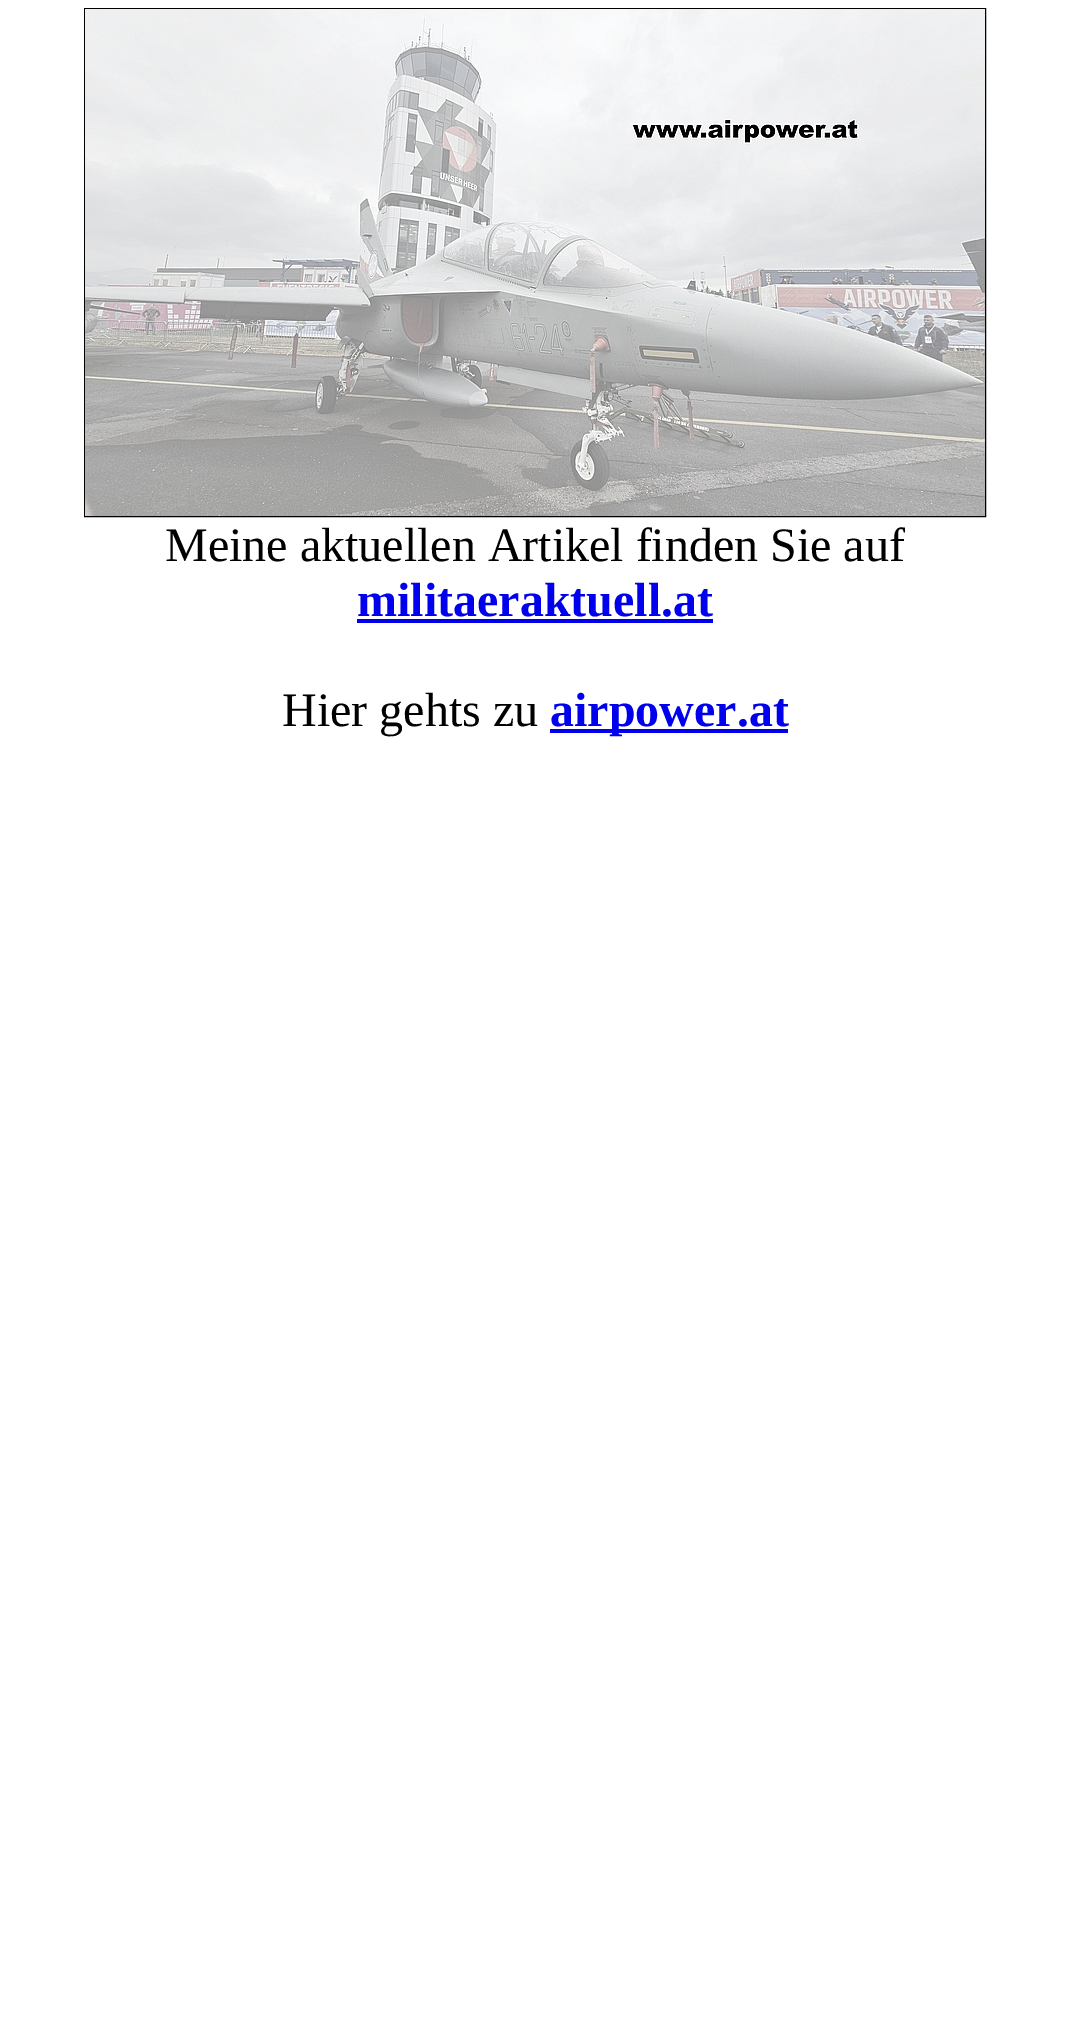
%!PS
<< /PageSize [1070 2036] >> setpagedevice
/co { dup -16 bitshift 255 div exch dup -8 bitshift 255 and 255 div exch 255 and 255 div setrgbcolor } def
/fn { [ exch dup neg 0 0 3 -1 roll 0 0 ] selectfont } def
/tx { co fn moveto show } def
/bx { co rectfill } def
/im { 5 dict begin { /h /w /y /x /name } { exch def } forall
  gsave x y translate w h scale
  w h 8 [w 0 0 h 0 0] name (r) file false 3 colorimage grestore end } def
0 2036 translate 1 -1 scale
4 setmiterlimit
0 0 1070 2036 16#FFFFFF bx
16#000000 co
84.5 8.5 901 508 rectstroke
(media/1.raw) 85 9 900 507 im
357 619 356 4 16#0000EE bx
550 729 238 4 16#0000EE bx
(Meine aktuellen Artikel finden Sie auf) 165 561 /LiberationSerif-Regular 48 16#000000 tx
(militaeraktuell.at) 357 616 /LiberationSerif-Bold 48 16#0000EE tx
(Hier gehts zu) 282 726 /LiberationSerif-Regular 48 16#000000 tx
(airpower.at) 550 726 /LiberationSerif-Bold 48 16#0000EE tx
showpage
